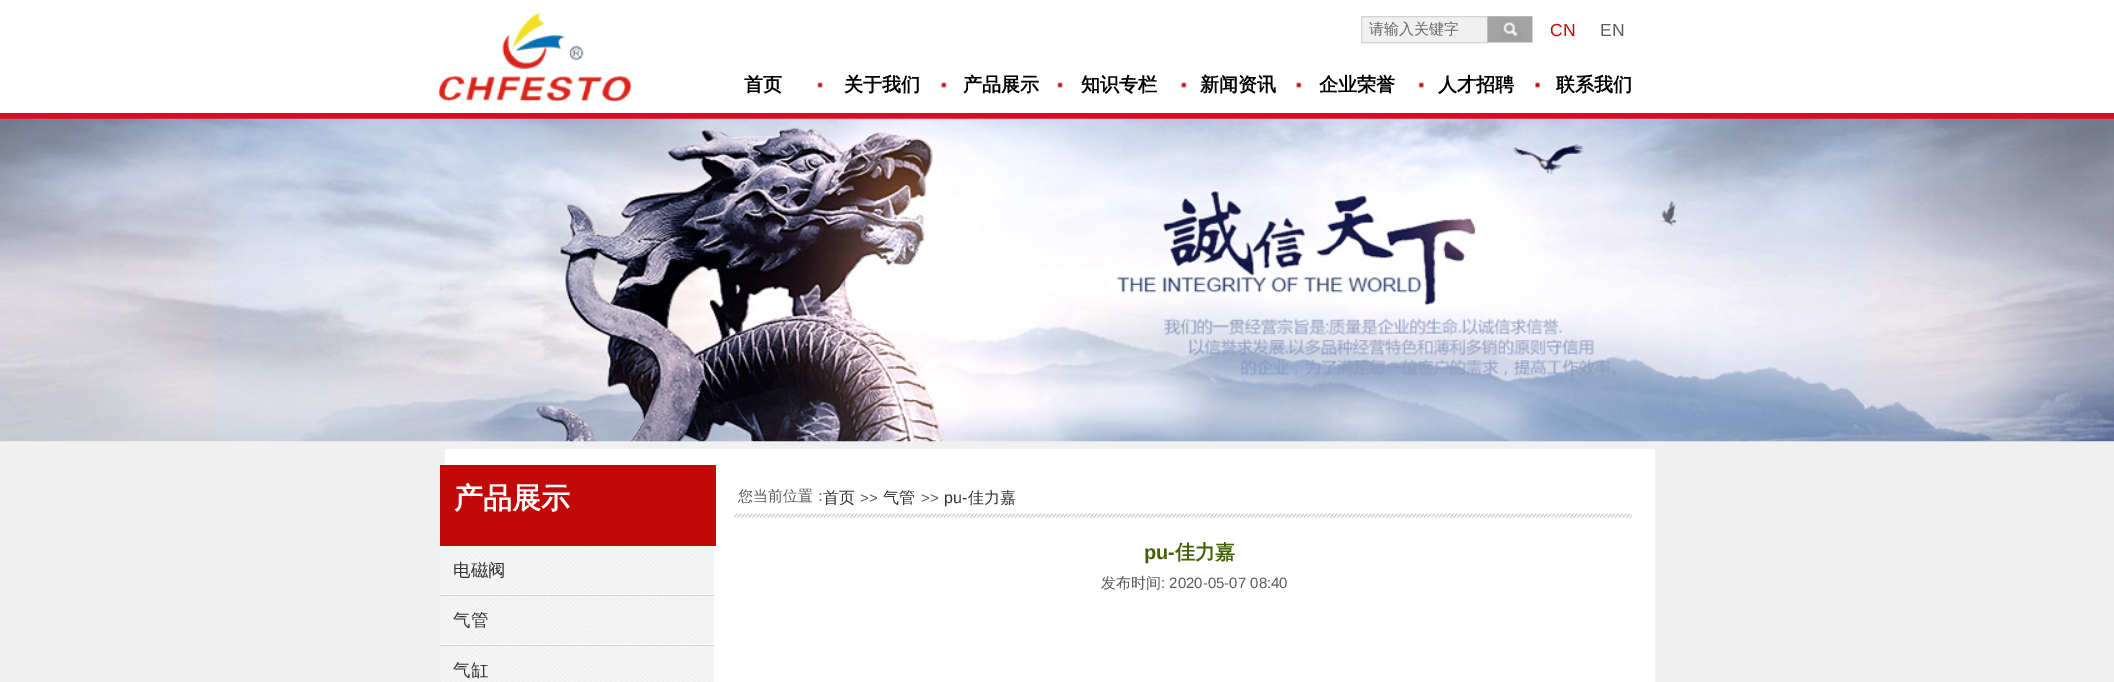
%!PS
<< /PageSize [2114 682] >> setpagedevice
/mt/moveto load def
/li/lineto load def
/cp/closepath load def
/fl/fill load def
/st/stroke load def
/gs/gsave load def
/gr/grestore load def
/co { dup -16 bitshift 255 div exch dup -8 bitshift 255 and 255 div exch 255 and 255 div setrgbcolor } def
/fn { [ exch dup neg 0 0 3 -1 roll 0 0 ] selectfont } def
/tx { co fn moveto show } def
/bx { co rectfill } def
/im { 5 dict begin { /h /w /y /x /name } { exch def } forall
  gsave x y translate w h scale
  w h 8 [w 0 0 h 0 0] name (r) file false 3 colorimage grestore end } def
0 682 translate 1 -1 scale
4 setmiterlimit
0 0 2114 682 16#F0F0F0 bx
0 0 2114 113 16#FFFFFF bx
(media/1.raw) 438 12 194 90 im
16#F0F0F0 co
1361.5 16.5 mt 1487.5 16.5 li 1487.5 42.5 li 1361.5 42.5 li cp gs fl gr
16#D3D3D3 co
st
(media/2.raw) 1487 16 46 27 im
0 113 2114 6 16#D80C25 bx
(media/3.raw) 817 82 6 6 im
(media/4.raw) 941 82 6 6 im
(media/3.raw) 1057 82 6 6 im
(media/4.raw) 1181 82 6 6 im
(media/4.raw) 1296 82 6 6 im
(media/5.raw) 1418 82 6 6 im
(media/6.raw) 1535 82 6 6 im
(media/7.raw) 0 118 2114 324 im
445 449 1210 233 16#FFFFFF bx
440 465 276 81 16#C10909 bx
(media/8.raw) 734 513 899 5 im
(media/9.raw) 440 546 274 49 im
440 595 274 1 16#D0D0D0 bx
(media/10.raw) 440 596 274 49 im
440 645 274 1 16#D0D0D0 bx
(media/11.raw) 440 646 274 36 im
(请输入关键字) 1369 34 /WenQuanYiZenHei-Medium 15 16#666666 tx
(CN) 1550 36 /LiberationSans-Regular 17.5 16#C10909 tx
(EN) 1600 36 /LiberationSans-Regular 17.5 16#5A5A5A tx
(首页) 744 91 /WenQuanYiZenHei-Bold 19 16#000000 tx
(关于我们) 844 91 /WenQuanYiZenHei-Bold 19 16#000000 tx
(产品展示) 963 91 /WenQuanYiZenHei-Bold 19 16#000000 tx
(知识专栏) 1081 91 /WenQuanYiZenHei-Bold 19 16#000000 tx
(新闻资讯) 1200 91 /WenQuanYiZenHei-Bold 19 16#000000 tx
(企业荣誉) 1319 91 /WenQuanYiZenHei-Bold 19 16#000000 tx
(人才招聘) 1438 91 /WenQuanYiZenHei-Bold 19 16#000000 tx
(联系我们) 1556 91 /WenQuanYiZenHei-Bold 19 16#000000 tx
(产品展示) 454 508 /WenQuanYiZenHei-Bold 29 16#FFFFFF tx
(您当前位置：) 738 501 /WenQuanYiZenHei-Medium 15 16#5A5A5A tx
(首页) 823 503 /WenQuanYiZenHei-Medium 16 16#333333 tx
(>>) 860 503 /LiberationSans-Regular 15 16#5A5A5A tx
(气管) 883 503 /WenQuanYiZenHei-Medium 16 16#333333 tx
(>>) 921 503 /LiberationSans-Regular 15 16#5A5A5A tx
(pu-) 944 503 /LiberationSans-Regular 16 16#333333 tx
(佳力嘉) 968 503 /WenQuanYiZenHei-Medium 16 16#333333 tx
(电磁阀) 453 576 /WenQuanYiZenHei-Medium 17.5 16#333333 tx
(气管) 453 626 /WenQuanYiZenHei-Medium 17.5 16#333333 tx
(气缸) 453 676 /WenQuanYiZenHei-Medium 17.5 16#333333 tx
(pu-) 1144 559 /LiberationSans-Bold 20 16#426100 tx
(佳力嘉) 1175 559 /WenQuanYiZenHei-Bold 20 16#426100 tx
(发布时间) 1101 588 /WenQuanYiZenHei-Medium 15 16#5A5A5A tx
(: 2020-05-07 08:40) 1161 588 /LiberationSans-Regular 15 16#5A5A5A tx
showpage
